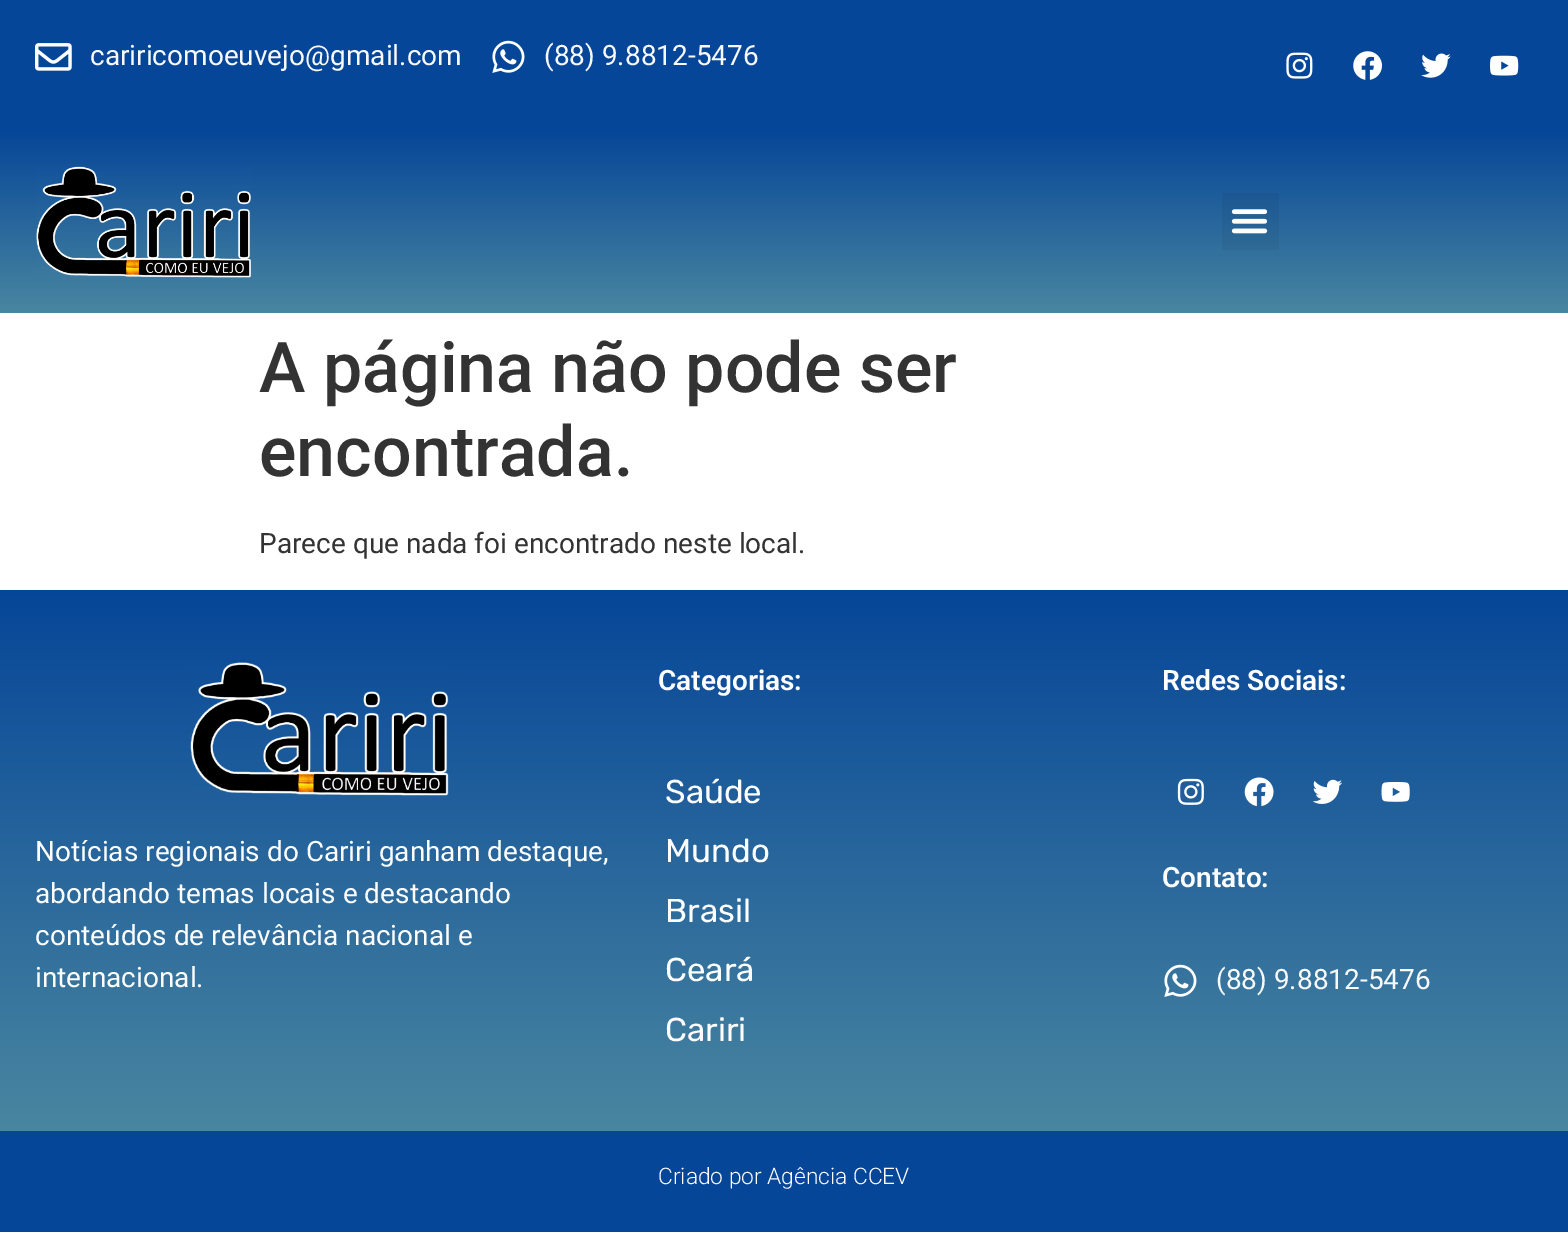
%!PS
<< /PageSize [1568 1260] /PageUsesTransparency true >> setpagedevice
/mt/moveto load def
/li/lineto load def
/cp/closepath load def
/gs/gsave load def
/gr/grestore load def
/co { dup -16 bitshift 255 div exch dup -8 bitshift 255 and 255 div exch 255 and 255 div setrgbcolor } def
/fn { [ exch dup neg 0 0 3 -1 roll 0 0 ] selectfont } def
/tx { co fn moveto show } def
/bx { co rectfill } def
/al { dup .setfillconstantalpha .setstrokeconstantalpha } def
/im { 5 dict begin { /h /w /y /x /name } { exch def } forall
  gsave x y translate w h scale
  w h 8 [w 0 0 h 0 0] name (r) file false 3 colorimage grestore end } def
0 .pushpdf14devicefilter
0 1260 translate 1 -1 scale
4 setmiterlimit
0 0 1568 1260 16#FFFFFF bx
0 0 1568 130 16#064698 bx
(media/1.raw) 35 43 37 28 im
(media/2.raw) 492 40 33 33 im
(media/3.raw) 1286 52 27 27 im
(media/4.raw) 1353 51 29 29 im
(media/5.raw) 1421 53 30 25 im
(media/6.raw) 1490 55 29 21 im
gs 0 130 mt 1568 130 li 1568 313 li 0 313 li cp clip newpath
<< /ShadingType 2 /ColorSpace /DeviceRGB /Coords [784 129 784 313] /Extend [true true] /Function << /FunctionType 2 /Domain [0 1] /C0 [.024 .275 .596] /C1 [.286 .525 .627] /N 1 >> >> shfill gr
(media/7.raw) 36 166 215 112 im
0.05 al
1222 193 57 57 16#000000 bx
1 al
(media/8.raw) 1231 209 37 25 im
gs 0 590 mt 1568 590 li 1568 1131 li 0 1131 li cp clip newpath
<< /ShadingType 2 /ColorSpace /DeviceRGB /Coords [784 590 784 1131] /Extend [true true] /Function << /FunctionType 2 /Domain [0 1] /C0 [.024 .275 .596] /C1 [.286 .525 .627] /N 1 >> >> shfill gr
(media/9.raw) 190 662 259 134 im
(media/10.raw) 1177 778 27 27 im
(media/11.raw) 1244 777 30 30 im
(media/12.raw) 1313 779 29 25 im
(media/13.raw) 1381 781 29 21 im
(media/14.raw) 1164 964 33 33 im
0 1131 1568 101 16#064698 bx
(cariricomoeuvejo@gmail.com) 90 65 /Roboto-Regular 28 16#F8F9FA tx
(\(88\) 9.8812-5476) 544 65 /Roboto-Regular 28 16#F8F9FA tx
(A página não pode ser) 259 392 /Roboto-Medium 70 16#333333 tx
(encontrada.) 259 476 /Roboto-Medium 70 16#333333 tx
(Parece que nada foi encontrado neste local.) 259 553 /Roboto-Regular 28 16#333333 tx
(Notícias regionais do Cariri ganham destaque,) 35 861 /Roboto-Regular 28 16#FEFEFE tx
(abordando temas locais e destacando) 35 903 /Roboto-Regular 28 16#FEFEFE tx
(conteúdos de relevância nacional e) 35 945 /Roboto-Regular 28 16#FEFEFE tx
(internacional.) 35 987 /Roboto-Regular 28 16#FEFEFE tx
(Categorias:) 658 690 /Roboto-SemiBold 28 16#FEFEFE tx
(Saúde) 665 803 /Rubik-Regular 33 16#FEFEFE tx
(Mundo) 665 862 /Rubik-Regular 33 16#FEFEFE tx
(Brasil) 665 922 /Rubik-Regular 33 16#FEFEFE tx
(Ceará) 665 981 /Rubik-Regular 33 16#FEFEFE tx
(Cariri) 665 1041 /Rubik-Regular 33 16#FEFEFE tx
(Redes Sociais:) 1162 690 /Roboto-SemiBold 28 16#FEFEFE tx
(Contato:) 1162 887 /Roboto-SemiBold 28 16#FEFEFE tx
(\(88\) 9.8812-5476) 1216 989 /Roboto-Regular 28 16#F8F9FA tx
(Criado por Agência CCEV) 658 1184 /Roboto-Light 22.75 16#FEFEFE tx
.poppdf14devicefilter showpage
